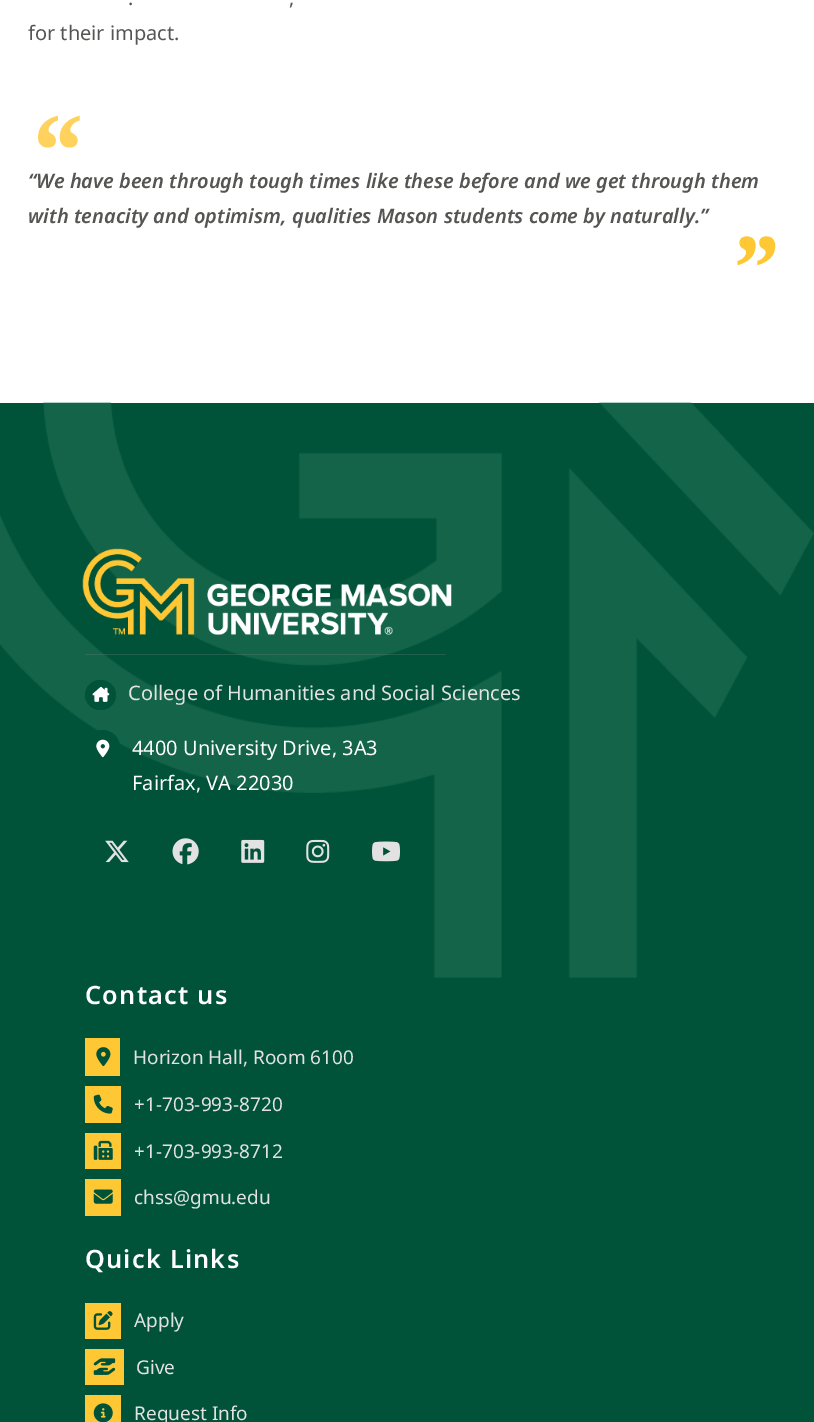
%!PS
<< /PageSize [814 1422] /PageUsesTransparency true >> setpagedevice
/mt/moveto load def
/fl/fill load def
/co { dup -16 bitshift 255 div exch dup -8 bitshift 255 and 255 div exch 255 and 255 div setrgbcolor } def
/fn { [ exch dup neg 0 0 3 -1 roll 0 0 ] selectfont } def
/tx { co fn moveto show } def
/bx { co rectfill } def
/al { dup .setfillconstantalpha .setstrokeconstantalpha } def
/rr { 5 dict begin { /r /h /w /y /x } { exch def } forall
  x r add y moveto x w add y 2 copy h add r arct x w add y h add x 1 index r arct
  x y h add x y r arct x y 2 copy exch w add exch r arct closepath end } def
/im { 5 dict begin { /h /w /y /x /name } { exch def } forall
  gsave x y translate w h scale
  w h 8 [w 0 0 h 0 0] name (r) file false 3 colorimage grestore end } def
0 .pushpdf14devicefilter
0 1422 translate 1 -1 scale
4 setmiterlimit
0 0 814 1422 16#FFFFFF bx
0 403 814 1019 16#005239 bx
(media/1.raw) 0 402 814 576 im
(media/2.raw) 82 548 370 87 im
0.25 al
85 654 361 1 16#888888 bx
1 al
16#005239 co
85 680 31 30 15 rr fl
(media/3.raw) 92 686 18 16 im
85 730 35 38 17.5 rr fl
(media/4.raw) 96 739 14 19 im
(media/5.raw) 105 840 24 23 im
(media/6.raw) 172 838 27 27 im
(media/7.raw) 241 839 24 24 im
(media/8.raw) 306 839 24 24 im
(media/9.raw) 372 841 28 21 im
85 1038 35 38 16#FEC734 bx
(media/10.raw) 96 1047 15 20 im
85 1086 36 37 16#FEC734 bx
(media/11.raw) 93 1094 20 20 im
85 1133 36 36 16#FEC734 bx
(media/12.raw) 93 1140 20 20 im
85 1179 36 37 16#FEC734 bx
(media/13.raw) 93 1189 20 15 im
85 1303 36 36 16#FEC734 bx
(media/14.raw) 93 1311 20 19 im
85 1349 39 36 16#FEC734 bx
(media/15.raw) 93 1358 23 17 im
85 1395 36 27 16#FEC734 bx
(media/16.raw) 93 1403 20 19 im
(.) 128 5 /NotoSans-Regular 20 16#555553 tx
(,) 289 5 /NotoSans-Regular 20 16#555553 tx
(for their impact.) 28 40 /NotoSans-Regular 20 16#555553 tx
(“) 28 186 /LiberationSerif-BoldItalic 106 16#FED25D tx
(“We have been through tough times like these before and we get through them) 28 188 /NotoSans-SemiBoldItalic 20 16#555553 tx
(with tenacity and optimism, qualities Mason students come by naturally.”) 28 223 /NotoSans-SemiBoldItalic 20 16#555553 tx
(”) 729 300 /LiberationSerif-BoldItalic 96 16#FEC734 tx
(College of Humanities and Social Sciences) 128 700 /NotoSans-Regular 20 16#E2E2E2 tx
(4400 University Drive, 3A3) 132 755 /NotoSans-Regular 20 16#FFFFFF tx
(Fairfax, VA 22030) 132 790 /NotoSans-Regular 20 16#FFFFFF tx
/NotoSans-SemiBold 25.25 fn
85 1004 mt 1.25 0 (Contact us) ashow
(Horizon Hall, Room 6100) 133 1064 /NotoSans-Regular 19 16#E2E2E2 tx
(+1-703-993-8720) 134 1111 /NotoSans-Regular 19 16#E2E2E2 tx
(+1-703-993-8712) 134 1158 /NotoSans-Regular 19 16#E2E2E2 tx
(chss@gmu.edu) 134 1204 /NotoSans-Regular 19 16#E2E2E2 tx
/NotoSans-SemiBold 25.25 fn
16#FFFFFF co
85 1268 mt 1.25 0 (Quick Links) ashow
(Apply) 134 1327 /NotoSans-Regular 19 16#E2E2E2 tx
(Give) 136 1374 /NotoSans-Regular 19 16#E2E2E2 tx
(Request Info) 134 1420 /NotoSans-Regular 19 16#E2E2E2 tx
.poppdf14devicefilter showpage
